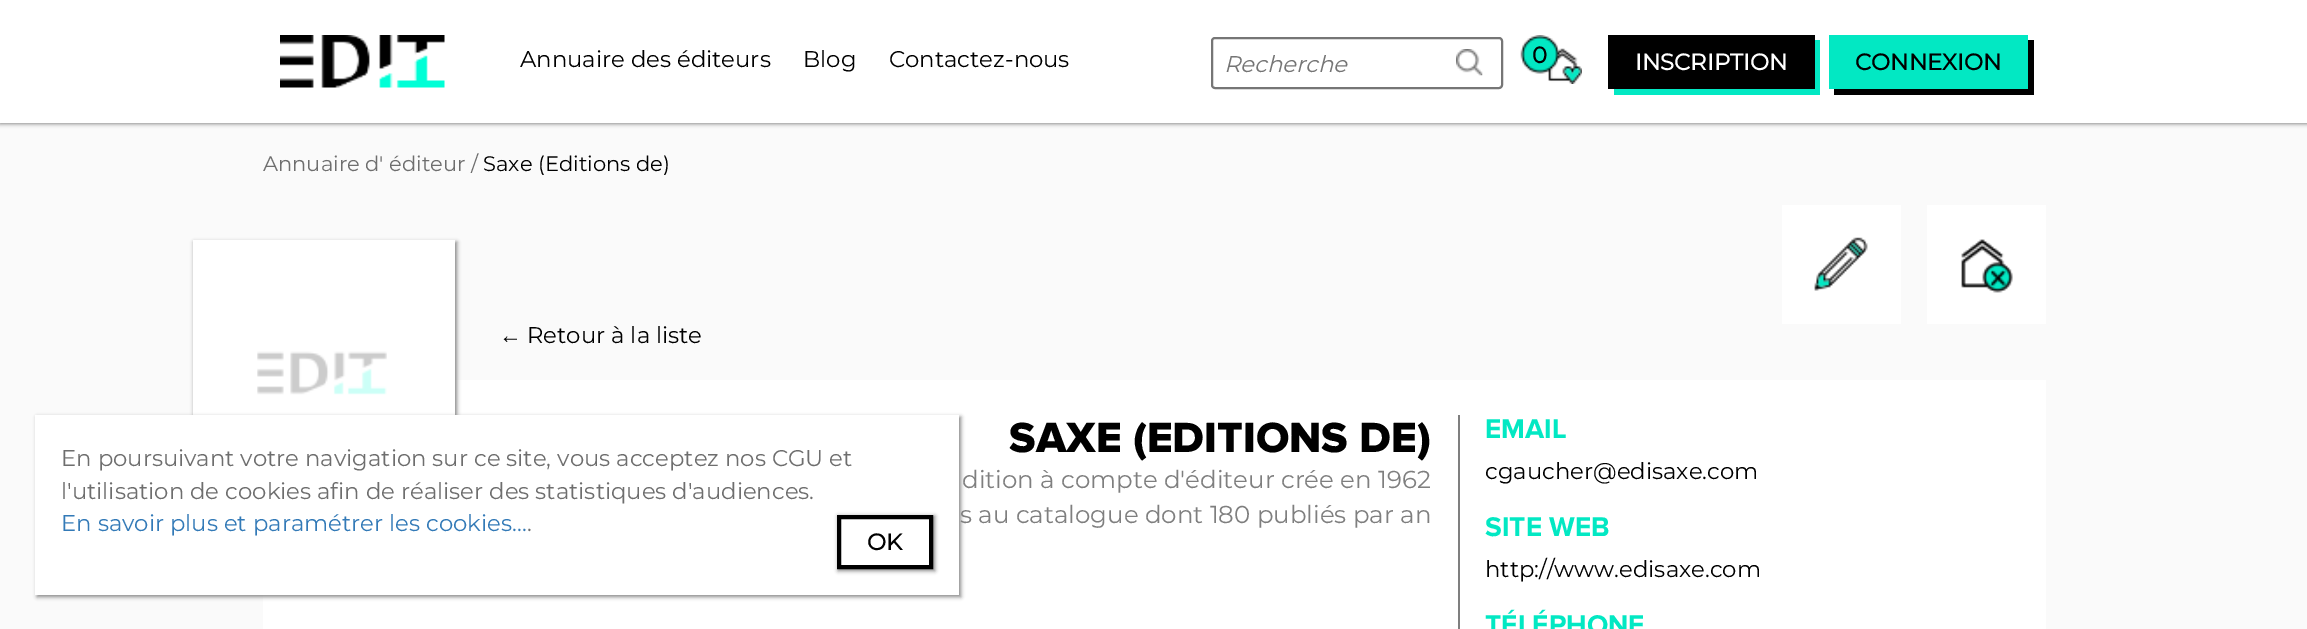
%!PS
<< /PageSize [2307 629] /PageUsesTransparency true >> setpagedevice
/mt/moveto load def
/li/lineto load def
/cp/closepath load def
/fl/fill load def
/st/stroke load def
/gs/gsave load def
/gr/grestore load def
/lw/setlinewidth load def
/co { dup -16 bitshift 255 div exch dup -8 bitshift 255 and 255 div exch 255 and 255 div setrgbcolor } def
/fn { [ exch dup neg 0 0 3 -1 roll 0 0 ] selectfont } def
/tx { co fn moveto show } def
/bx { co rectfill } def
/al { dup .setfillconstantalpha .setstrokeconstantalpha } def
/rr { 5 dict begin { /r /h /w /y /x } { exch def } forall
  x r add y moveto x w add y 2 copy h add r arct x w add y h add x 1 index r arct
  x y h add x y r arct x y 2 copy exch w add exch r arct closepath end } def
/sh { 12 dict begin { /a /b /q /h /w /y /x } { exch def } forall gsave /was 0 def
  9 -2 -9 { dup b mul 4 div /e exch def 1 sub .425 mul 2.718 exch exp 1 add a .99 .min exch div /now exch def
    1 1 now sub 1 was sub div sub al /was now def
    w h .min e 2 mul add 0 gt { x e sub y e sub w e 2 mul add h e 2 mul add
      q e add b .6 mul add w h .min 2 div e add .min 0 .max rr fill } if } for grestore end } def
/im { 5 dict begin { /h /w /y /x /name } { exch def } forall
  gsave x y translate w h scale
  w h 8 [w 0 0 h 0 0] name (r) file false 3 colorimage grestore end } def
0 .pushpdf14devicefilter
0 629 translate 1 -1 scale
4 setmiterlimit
0 0 2307 629 16#FAFAFA bx
16#888888 co
0 2 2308 122 0 2 1 sh
0 0 2307 123 16#FFFFFF bx
(media/1.raw) 280 35 165 53 im
(media/2.raw) 1520 35 62 49 im
16#02E8C3 co
1614 89 mt 1614 95 li 1820 95 li 1820 40 li 1815 40 li 1815 89 li cp fl
1608 35 207 54 16#000000 bx
1834 89 mt 1834 95 li 2034 95 li 2034 40 li 2028 40 li 2028 89 li cp fl
1829 35 199 54 16#02E8C3 bx
263 380 1783 249 16#FFFFFF bx
16#888888 co
194 242 263 262 0 2 1 sh
193 240 262 175 16#FFFFFF bx
16#888888 co
37 417 924 180 0 2 1 sh
35 415 924 180 16#FFFFFF bx
gs
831 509 mt 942 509 li 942 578 li 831 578 li cp 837 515 mt 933 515 li 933 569 li 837 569 li cp eoclip newpath
16#888888 co
838 516 97 55 0 2 1 sh
gr
16#000000 co
4 lw
839 517 92 50 rectstroke
16#767676 co
2 lw
1212 38 290 50 3 rr st
(media/3.raw) 1456 49 27 27 im
1782 205 119 119 16#FFFFFF bx
(media/4.raw) 1814 237 54 54 im
1927 205 119 119 16#FFFFFF bx
(media/5.raw) 1961 239 52 54 im
(media/6.raw) 257 351 130 44 im
1458 415 2 214 16#7F7F7F bx
(0) 1532 63 /Montserrat-Bold 22.75 16#000000 tx
(INSCRIPTION) 1635 70 /Montserrat-Bold 22.75 16#FFFFFF tx
(CONNEXION) 1855 70 /Montserrat-Bold 22.75 16#000000 tx
(En poursuivant votre navigation sur ce site, vous acceptez nos CGU et) 61 466 /Montserrat-Thin 22.75 16#6E6E6E tx
(l'utilisation de cookies afin de réaliser des statistiques d'audiences.) 61 499 /Montserrat-Thin 22.75 16#6E6E6E tx
(En savoir plus et paramétrer les cookies...) 61 531 /Montserrat-Thin 22.75 16#337AB7 tx
(.) 527 531 /Montserrat-Thin 22.75 16#6E6E6E tx
(OK) 867 550 /Montserrat-Bold 22.75 16#000000 tx
(Recherche) 1224 72 /Montserrat-ThinItalic 22.75 16#757575 tx
(Annuaire des éditeurs) 520 67 /Montserrat-Thin 22.75 16#000000 tx
(Blog) 803 67 /Montserrat-Thin 22.75 16#000000 tx
(Contactez-nous) 889 67 /Montserrat-Thin 22.75 16#000000 tx
(Annuaire d' éditeur /) 263 171 /Montserrat-Thin 21 16#6E6E6E tx
(Saxe \(Editions de\)) 483 171 /Montserrat-Thin 21 16#000000 tx
(←) 499 343 /LiberationSans-Regular 22.75 16#000000 tx
(Retour à la liste) 527 343 /Montserrat-Thin 22.75 16#000000 tx
(SAXE \(EDITIONS DE\)) 1009 452 /ProximaNova-ExtraBold 43.75 16#000000 tx
(dition à compte d'éditeur crée en 1962) 962 488 /Montserrat-Thin 24.5 16#7F7F7F tx
(s au catalogue dont 180 publiés par an) 960 523 /Montserrat-Thin 24.5 16#7F7F7F tx
(EMAIL) 1485 438 /ProximaNova-Bold 28 16#02E8C3 tx
(cgaucher@edisaxe.com) 1485 479 /Montserrat-Thin 22.75 16#000000 tx
(SITE WEB) 1485 536 /ProximaNova-Bold 28 16#02E8C3 tx
(http://www.edisaxe.com) 1485 577 /Montserrat-Thin 22.75 16#000000 tx
(TÉLÉPHONE) 1485 634 /ProximaNova-Bold 28 16#02E8C3 tx
.poppdf14devicefilter showpage
